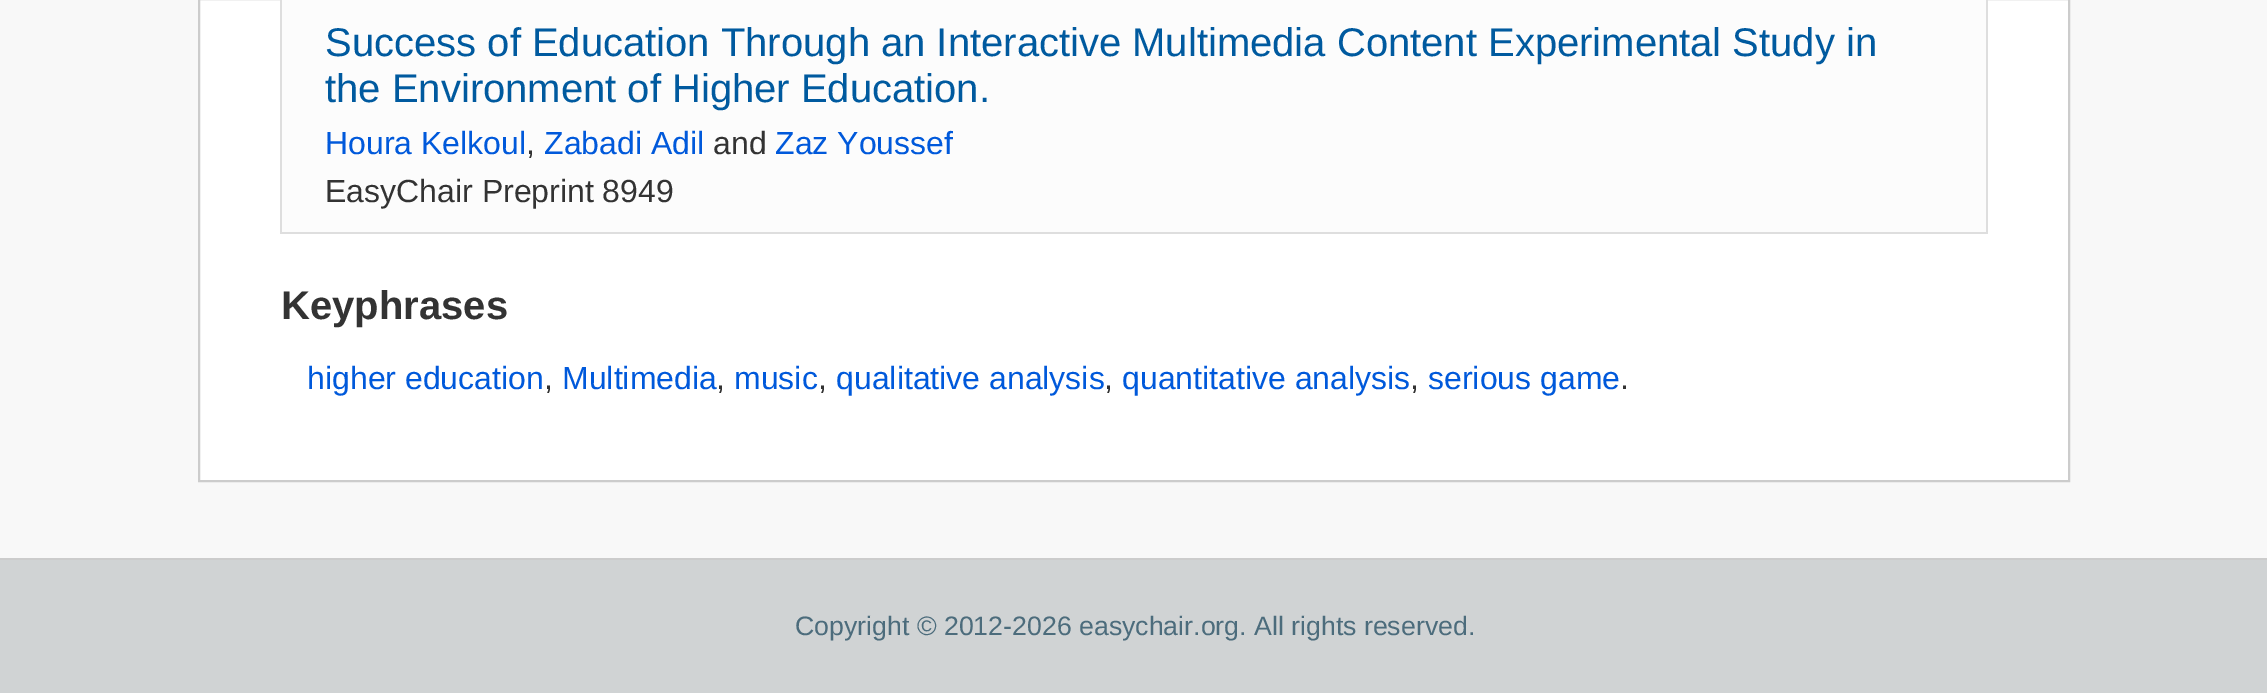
%!PS
<< /PageSize [2267 693] >> setpagedevice
/mt/moveto load def
/li/lineto load def
/cp/closepath load def
/fl/fill load def
/st/stroke load def
/gs/gsave load def
/gr/grestore load def
/lw/setlinewidth load def
/co { dup -16 bitshift 255 div exch dup -8 bitshift 255 and 255 div exch 255 and 255 div setrgbcolor } def
/fn { [ exch dup neg 0 0 3 -1 roll 0 0 ] selectfont } def
/tx { co fn moveto show } def
/bx { co rectfill } def
0 693 translate 1 -1 scale
4 setmiterlimit
0 0 2267 693 16#F8F8F8 bx
16#FFFFFF co
199 -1 mt 2069 -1 li 2069 481 li 199 481 li cp gs fl gr
16#CCCCCC co
2 lw
st
1986 0 2 234 16#DEDEDE bx
280 232 1708 2 16#DEDEDE bx
280 0 2 234 16#DEDEDE bx
282 0 1704 232 16#FCFCFC bx
0 560 2267 133 16#D0D3D4 bx
0 558 2267 2 16#CCCCCC bx
(Success of Education Through an Interactive Multimedia Content Experimental Study in) 325 56 /LiberationSans-Regular 40 16#005A9F tx
(the Environment of Higher Education.) 325 102 /LiberationSans-Regular 40 16#005A9F tx
(Houra Kelkoul) 325 154 /LiberationSans-Regular 32 16#0059DB tx
(,) 526 154 /LiberationSans-Regular 32 16#333333 tx
(Zabadi Adil) 544 154 /LiberationSans-Regular 32 16#0059DB tx
(and) 713 154 /LiberationSans-Regular 32 16#333333 tx
(Zaz Youssef) 775 154 /LiberationSans-Regular 32 16#0059DB tx
(EasyChair Preprint 8949) 325 202 /LiberationSans-Regular 32 16#333333 tx
(Keyphrases) 281 319 /LiberationSans-Bold 40 16#333333 tx
(higher education) 307 389 /LiberationSans-Regular 32 16#0059DB tx
(,) 544 389 /LiberationSans-Regular 32 16#333333 tx
(Multimedia) 562 389 /LiberationSans-Regular 32 16#0059DB tx
(,) 716 389 /LiberationSans-Regular 32 16#333333 tx
(music) 734 389 /LiberationSans-Regular 32 16#0059DB tx
(,) 818 389 /LiberationSans-Regular 32 16#333333 tx
(qualitative analysis) 836 389 /LiberationSans-Regular 32 16#0059DB tx
(,) 1104 389 /LiberationSans-Regular 32 16#333333 tx
(quantitative analysis) 1122 389 /LiberationSans-Regular 32 16#0059DB tx
(,) 1410 389 /LiberationSans-Regular 32 16#333333 tx
(serious game) 1428 389 /LiberationSans-Regular 32 16#0059DB tx
(.) 1620 389 /LiberationSans-Regular 32 16#333333 tx
(Copyright © 2012-2026 easychair.org. All rights reserved.) 795 635 /LiberationSans-Regular 26.7 16#4C6C7C tx
showpage
